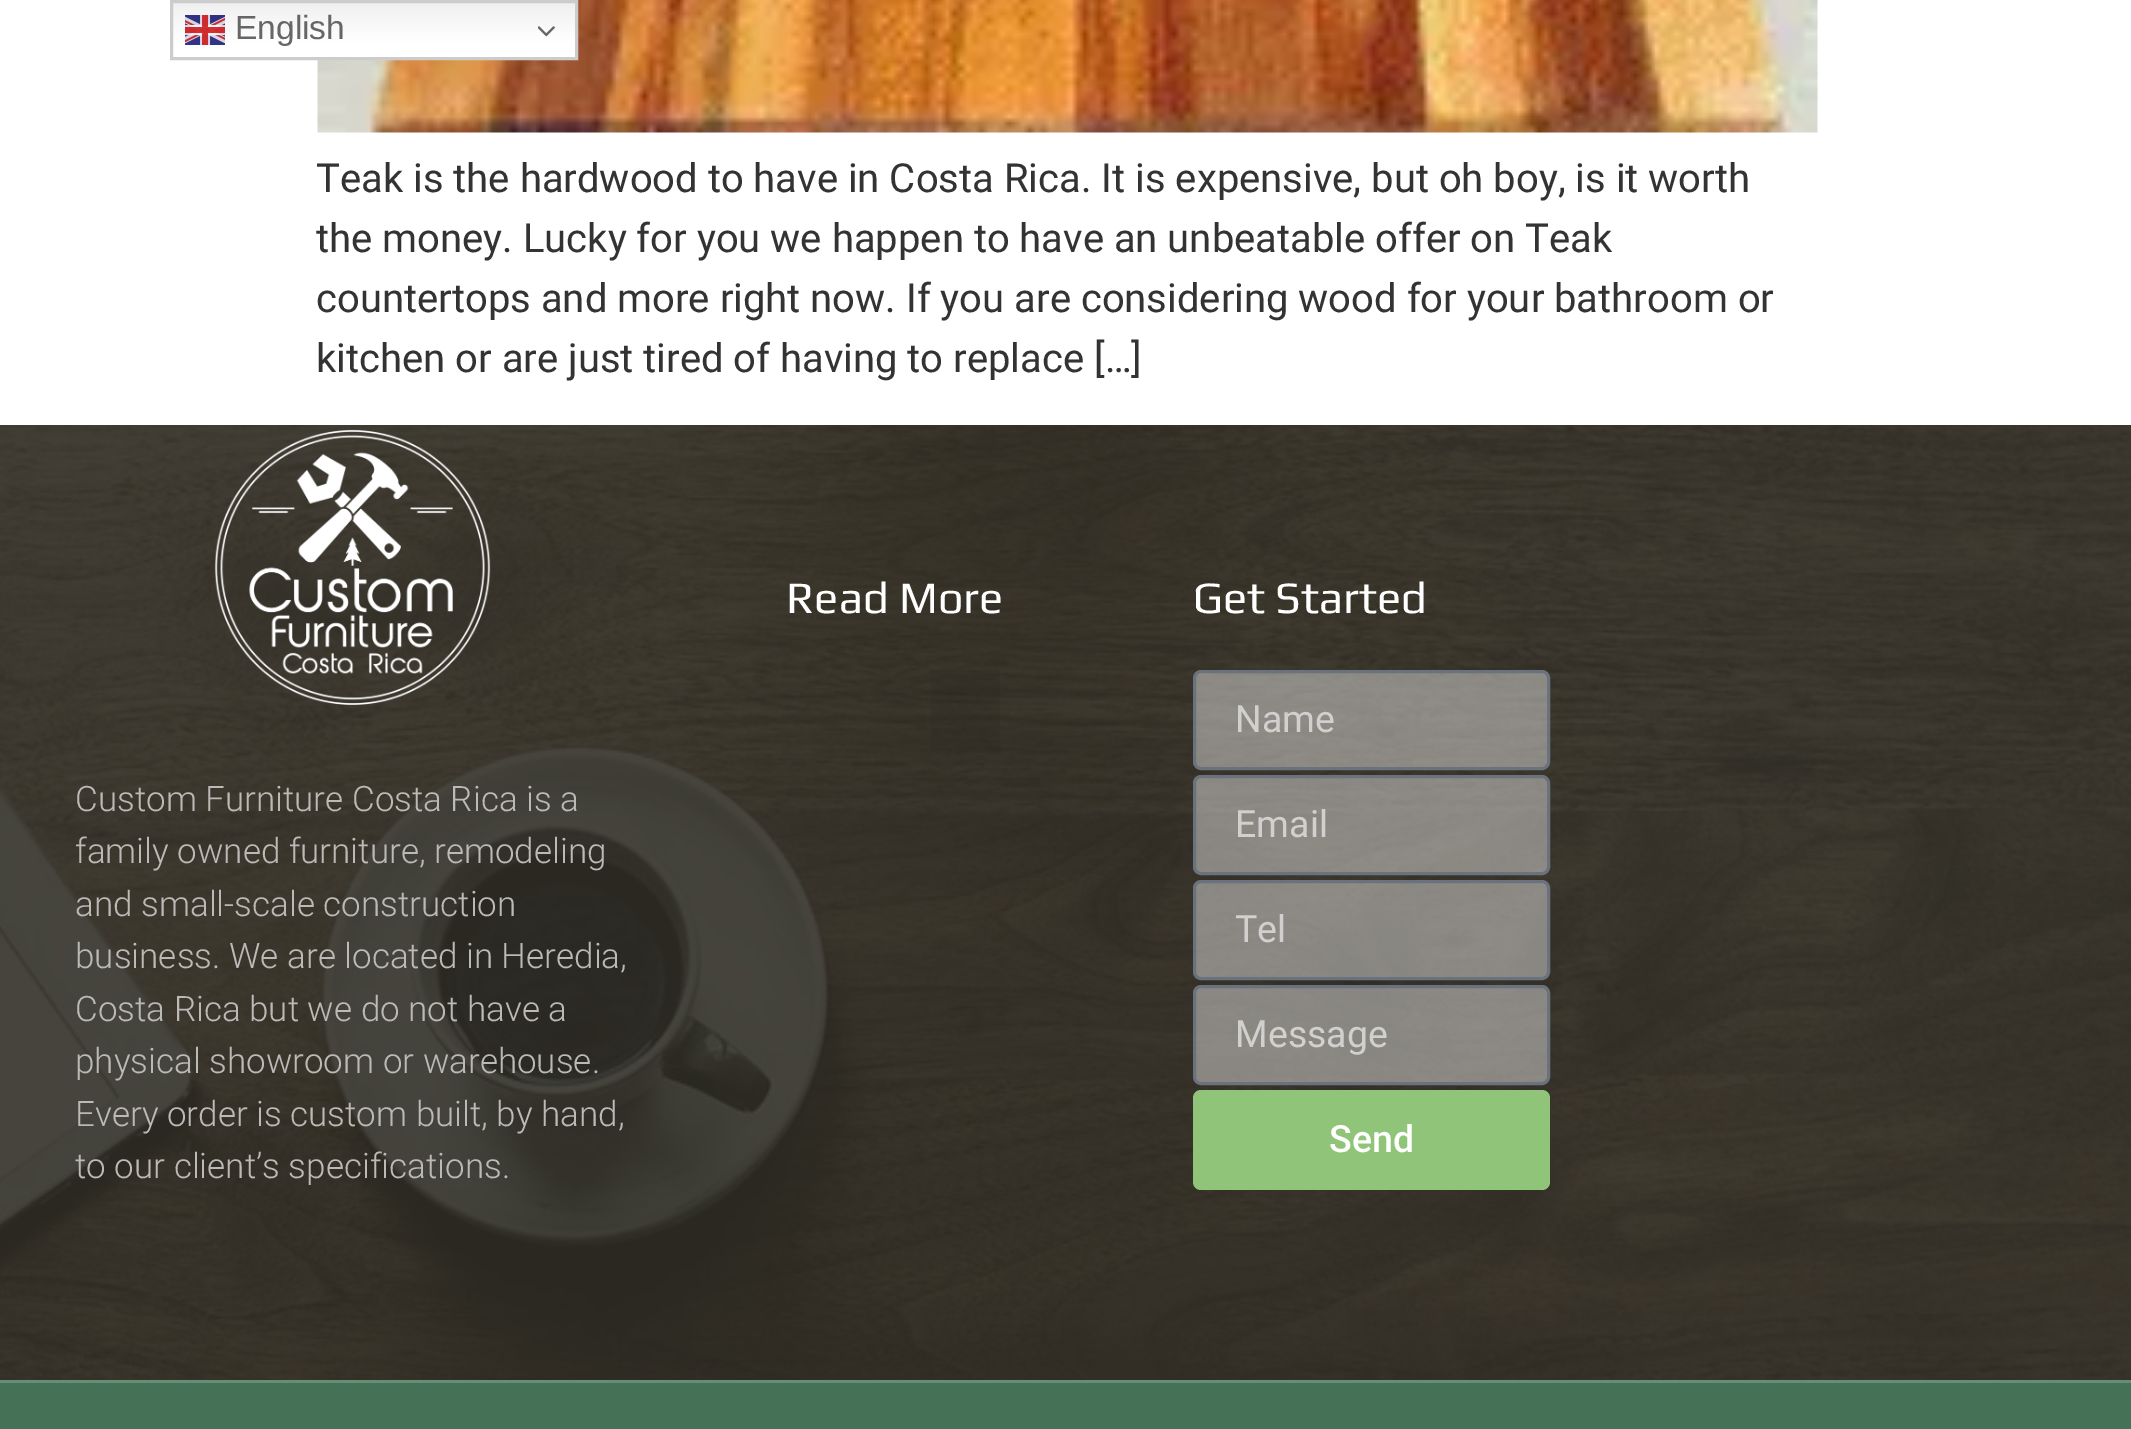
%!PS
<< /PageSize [2131 1429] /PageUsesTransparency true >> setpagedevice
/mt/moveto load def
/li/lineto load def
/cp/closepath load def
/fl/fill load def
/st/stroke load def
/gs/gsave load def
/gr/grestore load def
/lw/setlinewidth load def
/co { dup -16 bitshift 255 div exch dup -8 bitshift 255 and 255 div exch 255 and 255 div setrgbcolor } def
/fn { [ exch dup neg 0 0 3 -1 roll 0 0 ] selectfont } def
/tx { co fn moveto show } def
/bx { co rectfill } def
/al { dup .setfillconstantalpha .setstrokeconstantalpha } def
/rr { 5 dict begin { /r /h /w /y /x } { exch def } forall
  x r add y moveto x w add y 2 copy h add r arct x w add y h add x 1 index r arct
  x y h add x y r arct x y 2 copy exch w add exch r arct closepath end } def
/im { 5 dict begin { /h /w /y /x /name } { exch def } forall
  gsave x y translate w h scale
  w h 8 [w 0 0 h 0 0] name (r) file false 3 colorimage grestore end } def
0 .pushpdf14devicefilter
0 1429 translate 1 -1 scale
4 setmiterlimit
0 0 2131 1429 16#FFFFFF bx
(media/3.raw) 317 0 1501 133 im
gs 173 3 mt 575 3 li 575 57 li 173 57 li cp clip newpath
<< /ShadingType 2 /ColorSpace /DeviceRGB /Coords [374 0 374 60] /Extend [true true] /Function << /FunctionType 3 /Domain [0 1] /Functions [<< /FunctionType 2 /Domain [0 1] /C0 [.937 .937 .937] /C1 [1 1 1] /N 1 >> << /FunctionType 2 /Domain [0 1] /C0 [1 1 1] /C1 [1 1 1] /N 1 >>] /Bounds [.7] /Encode [0 1 0 1] >> >> shfill gr
16#CCCCCC co
3 lw
171.5 1.5 405 57 rectstroke
(media/1.raw) 185 15 40 30 im
(media/2.raw) 538 26 17 11 im
(media/4.raw) 0 425 2131 955 im
(media/5.raw) 214 429 277 276 im
0.05 al
930 670 70 83 16#000000 bx
0.42 al
16#FFFFFF co
1194.5 671.5 354 97 6.5 rr fl
1 al
16#69727D co
1194.5 671.5 354 97 6.5 rr st
0.42 al
16#FFFFFF co
1194.5 776.5 354 97 6.5 rr fl
1 al
16#69727D co
1194.5 776.5 354 97 6.5 rr st
0.42 al
16#FFFFFF co
1194.5 881.5 354 97 6.5 rr fl
1 al
16#69727D co
1194.5 881.5 354 97 6.5 rr st
0.42 al
16#FFFFFF co
1194.5 986.5 354 97 6.5 rr fl
1 al
16#69727D co
1194.5 986.5 354 97 6.5 rr st
16#8FC479 co
1193 1090 357 100 8 rr fl
0 1383 2131 46 16#457256 bx
0 1380 2131 3 16#688D76 bx
(English) 235 39 /LiberationSans-Regular 33.5 16#666666 tx
(Teak is the hardwood to have in Costa Rica. It is expensive, but oh boy, is it worth) 316 192 /Roboto-Regular 40 16#333333 tx
(the money. Lucky for you we happen to have an unbeatable offer on Teak) 316 252 /Roboto-Regular 40 16#333333 tx
(countertops and more right now. If you are considering wood for your bathroom or) 316 312 /Roboto-Regular 40 16#333333 tx
(kitchen or are just tired of having to replace […]) 316 372 /Roboto-Regular 40 16#333333 tx
(Custom Furniture Costa Rica is a) 75 811 /Roboto-Light 35 16#BBBAB7 tx
(family owned furniture, remodeling) 75 863 /Roboto-Light 35 16#BBBAB7 tx
(and small-scale construction) 75 916 /Roboto-Light 35 16#BBBAB7 tx
(business. We are located in Heredia,) 75 968 /Roboto-Light 35 16#BBBAB7 tx
(Costa Rica but we do not have a) 75 1021 /Roboto-Light 35 16#BBBAB7 tx
(physical showroom or warehouse.) 75 1073 /Roboto-Light 35 16#BBBAB7 tx
(Every order is custom built, by hand,) 75 1126 /Roboto-Light 35 16#BBBAB7 tx
(to our client’s specifications.) 75 1178 /Roboto-Light 35 16#BBBAB7 tx
(Read More) 786 613 /Play-Regular 45 16#FFFFFF tx
(Get Started) 1193 613 /Play-Regular 45 16#FFFFFF tx
(Name) 1235 732 /Roboto-Regular 37.5 16#D1D0CE tx
(Email) 1235 837 /Roboto-Regular 37.5 16#D1D0CE tx
(Tel) 1235 942 /Roboto-Regular 37.5 16#D1D0CE tx
(Message) 1235 1047 /Roboto-Regular 37.5 16#D1D0CE tx
(Send) 1329 1152 /Roboto-Medium 37.5 16#FFFFFF tx
.poppdf14devicefilter showpage
